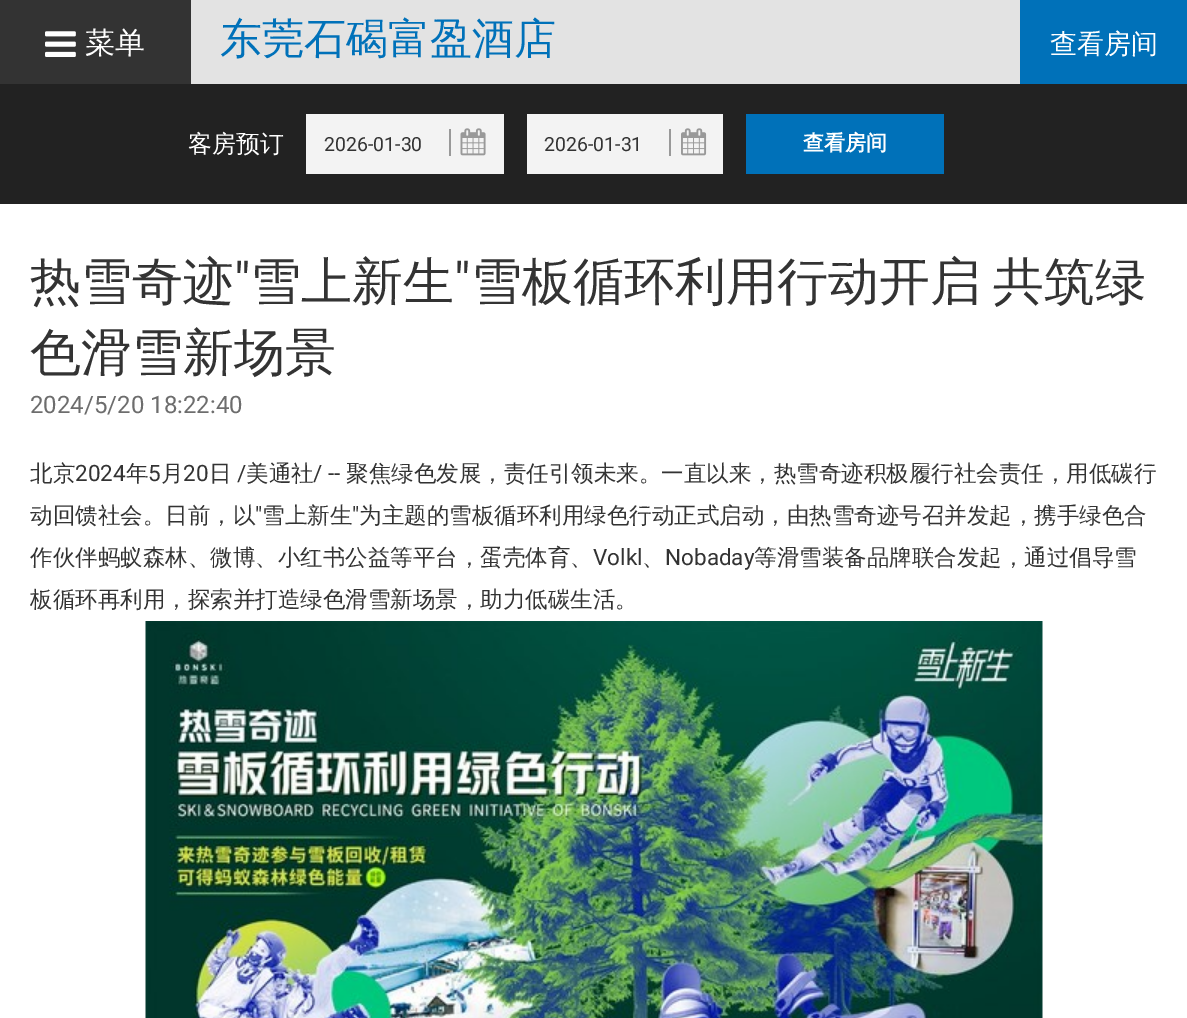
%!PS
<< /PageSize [1187 1018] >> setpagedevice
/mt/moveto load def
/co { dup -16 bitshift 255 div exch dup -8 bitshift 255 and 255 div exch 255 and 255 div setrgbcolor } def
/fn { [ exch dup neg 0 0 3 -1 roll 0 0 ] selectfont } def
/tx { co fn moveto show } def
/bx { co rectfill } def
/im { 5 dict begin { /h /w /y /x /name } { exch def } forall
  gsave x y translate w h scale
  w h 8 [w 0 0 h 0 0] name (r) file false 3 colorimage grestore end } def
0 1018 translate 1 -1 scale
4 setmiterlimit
0 0 1187 1018 16#FFFFFF bx
191 0 829 84 16#E3E3E3 bx
0 0 191 84 16#333333 bx
(media/1.raw) 45 31 31 26 im
1020 0 167 84 16#0071B9 bx
0 84 1187 120 16#222222 bx
306 114 198 60 16#F3F3F3 bx
449 129 2 27 16#999999 bx
(media/2.raw) 460 128 26 28 im
527 114 196 60 16#F3F3F3 bx
669 129 2 27 16#999999 bx
(media/3.raw) 681 128 26 28 im
746 114 198 60 16#0071B9 bx
(media/4.raw) 145 621 898 397 im
(菜单) 85 53 /WenQuanYiZenHei-Medium 30 16#FFFFFF tx
(东莞石碣富盈酒店) 220 53 /WenQuanYiZenHei-Medium 42 16#0071B9 tx
(查看房间) 1050 53 /WenQuanYiZenHei-Medium 27 16#FFFFFF tx
(客房预订) 188 152 /WenQuanYiZenHei-Medium 24 16#FFFFFF tx
(2026-01-30) 324 151 /Roboto-Regular 19.5 16#333333 tx
(2026-01-31) 544 151 /Roboto-Regular 19.5 16#333333 tx
(查看房间) 803 150 /WenQuanYiZenHei-Bold 21 16#FFFFFF tx
(热雪奇迹) 30 299 /WenQuanYiZenHei-Medium 51 16#333333 tx
(") 234 299 /Roboto-Regular 51 16#333333 tx
(雪上新生) 250 299 /WenQuanYiZenHei-Medium 51 16#333333 tx
(") 454 299 /Roboto-Regular 51 16#333333 tx
/WenQuanYiZenHei-Medium 51 fn
471 299 mt -3 0 32 (雪板循环利用行动开启 共筑绿) widthshow
(色滑雪新场景) 30 370 /WenQuanYiZenHei-Medium 51 16#333333 tx
(2024/5/20 18:22:40) 30 413 /Roboto-Regular 24 16#6D6D6D tx
(北京) 30 481 /WenQuanYiZenHei-Medium 22.5 16#333333 tx
(2024) 75 481 /Roboto-Regular 22.5 16#333333 tx
(年) 126 481 /WenQuanYiZenHei-Medium 22.5 16#333333 tx
(5) 148 481 /Roboto-Regular 22.5 16#333333 tx
(月) 161 481 /WenQuanYiZenHei-Medium 22.5 16#333333 tx
(20) 183 481 /Roboto-Regular 22.5 16#333333 tx
(日) 209 481 /WenQuanYiZenHei-Medium 22.5 16#333333 tx
(/) 237 481 /Roboto-Regular 22.5 16#333333 tx
(美通社) 246 481 /WenQuanYiZenHei-Medium 22.5 16#333333 tx
(/ --) 313 481 /Roboto-Regular 22.5 16#333333 tx
(聚焦绿色发展，责任引领未来。一直以来，热雪奇迹积极履行社会责任，用低碳行) 346 481 /WenQuanYiZenHei-Medium 22.5 16#333333 tx
(动回馈社会。日前，以) 30 523 /WenQuanYiZenHei-Medium 22.5 16#333333 tx
(") 255 523 /Roboto-Regular 22.5 16#333333 tx
(雪上新生) 262 523 /WenQuanYiZenHei-Medium 22.5 16#333333 tx
(") 352 523 /Roboto-Regular 22.5 16#333333 tx
(为主题的雪板循环利用绿色行动正式启动，由热雪奇迹号召并发起，携手绿色合) 359 523 /WenQuanYiZenHei-Medium 22.5 16#333333 tx
(作伙伴蚂蚁森林、微博、小红书公益等平台，蛋壳体育、) 30 565 /WenQuanYiZenHei-Medium 22.5 16#333333 tx
(Volkl) 593 565 /Roboto-Regular 22.5 16#333333 tx
(、) 642 565 /WenQuanYiZenHei-Medium 22.5 16#333333 tx
(Nobaday) 665 565 /Roboto-Regular 22.5 16#333333 tx
(等滑雪装备品牌联合发起，通过倡导雪) 754 565 /WenQuanYiZenHei-Medium 22.5 16#333333 tx
(板循环再利用，探索并打造绿色滑雪新场景，助力低碳生活。) 30 607 /WenQuanYiZenHei-Medium 22.5 16#333333 tx
showpage
